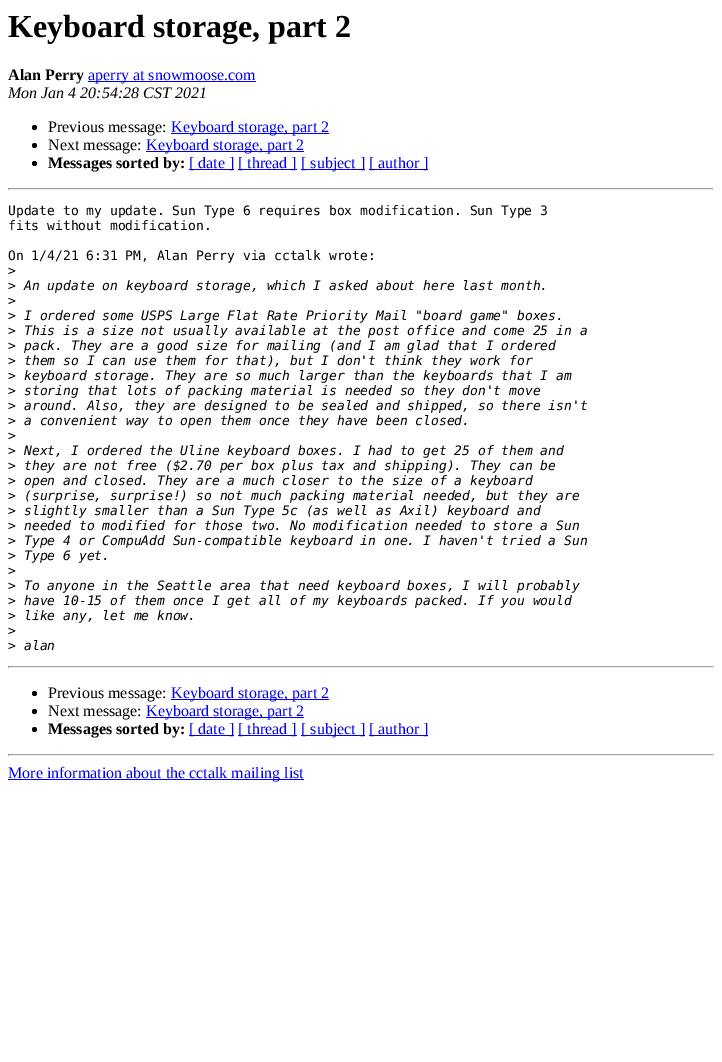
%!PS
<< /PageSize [722 1062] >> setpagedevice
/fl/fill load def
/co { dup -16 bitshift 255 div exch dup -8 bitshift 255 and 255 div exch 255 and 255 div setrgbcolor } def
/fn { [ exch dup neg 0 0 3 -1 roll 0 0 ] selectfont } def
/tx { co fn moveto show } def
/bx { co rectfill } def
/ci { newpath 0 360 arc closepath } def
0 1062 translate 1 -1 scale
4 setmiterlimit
0 0 722 1062 16#FFFFFF bx
88 81 168 1 16#0000EE bx
16#000000 co
34.5 127.5 2.5 ci fl
171 133 158 1 16#0000EE bx
16#000000 co
34.5 145.5 2.5 ci fl
146 151 158 1 16#0000EE bx
16#000000 co
34.5 163.5 2.5 ci fl
189 169 45 1 16#0000EE bx
238 169 59 1 16#0000EE bx
301 169 64 1 16#0000EE bx
369 169 59 1 16#0000EE bx
8 188 706 1 16#9F9F9F bx
713 188 1 2 16#EEEEEE bx
8 189 706 1 16#EEEEEE bx
8 188 1 2 16#9F9F9F bx
8 666 706 1 16#9F9F9F bx
713 666 1 2 16#EEEEEE bx
8 667 706 1 16#EEEEEE bx
8 666 1 2 16#9F9F9F bx
16#000000 co
34.5 693.5 2.5 ci fl
171 699 158 1 16#0000EE bx
16#000000 co
34.5 711.5 2.5 ci fl
146 717 158 1 16#0000EE bx
16#000000 co
34.5 729.5 2.5 ci fl
189 735 45 1 16#0000EE bx
238 735 59 1 16#0000EE bx
301 735 64 1 16#0000EE bx
369 735 59 1 16#0000EE bx
8 754 706 1 16#9F9F9F bx
713 754 1 2 16#EEEEEE bx
8 755 706 1 16#EEEEEE bx
8 754 1 2 16#9F9F9F bx
8 779 296 1 16#0000EE bx
(Keyboard storage, part 2) 8 37 /LiberationSerif-Bold 32 16#000000 tx
(Alan Perry) 8 80 /LiberationSerif-Bold 16 16#000000 tx
(aperry at snowmoose.com) 88 80 /LiberationSerif-Regular 16 16#0000EE tx
(Mon Jan 4 20:54:28 CST 2021) 8 98 /LiberationSerif-Italic 16 16#000000 tx
(Previous message:) 48 132 /LiberationSerif-Regular 16 16#000000 tx
(Keyboard storage, part 2) 171 132 /LiberationSerif-Regular 16 16#0000EE tx
(Next message:) 48 150 /LiberationSerif-Regular 16 16#000000 tx
(Keyboard storage, part 2) 146 150 /LiberationSerif-Regular 16 16#0000EE tx
(Messages sorted by:) 48 168 /LiberationSerif-Bold 16 16#000000 tx
([ date ]) 189 168 /LiberationSerif-Regular 16 16#0000EE tx
([ thread ]) 238 168 /LiberationSerif-Regular 16 16#0000EE tx
([ subject ]) 301 168 /LiberationSerif-Regular 16 16#0000EE tx
([ author ]) 369 168 /LiberationSerif-Regular 16 16#0000EE tx
(Update to my update. Sun Type 6 requires box modification. Sun Type 3) 8 215 /DejaVuSansMono-Regular 13 16#000000 tx
(fits without modification.) 8 230 /DejaVuSansMono-Regular 13 16#000000 tx
(On 1/4/21 6:31 PM, Alan Perry via cctalk wrote:) 8 260 /DejaVuSansMono-Regular 13 16#000000 tx
(>) 8 275 /DejaVuSansMono-Regular 13 16#000000 tx
(>) 8 290 /DejaVuSansMono-Regular 13 16#000000 tx
(An update on keyboard storage, which I asked about here last month.) 24 290 /DejaVuSansMono-Italic 13 16#000000 tx
(>) 8 305 /DejaVuSansMono-Regular 13 16#000000 tx
(>) 8 320 /DejaVuSansMono-Regular 13 16#000000 tx
(I ordered some USPS Large Flat Rate Priority Mail "board game" boxes.) 24 320 /DejaVuSansMono-Italic 13 16#000000 tx
(>) 8 335 /DejaVuSansMono-Regular 13 16#000000 tx
(This is a size not usually available at the post office and come 25 in a) 24 335 /DejaVuSansMono-Italic 13 16#000000 tx
(>) 8 350 /DejaVuSansMono-Regular 13 16#000000 tx
(pack. They are a good size for mailing \(and I am glad that I ordered) 24 350 /DejaVuSansMono-Italic 13 16#000000 tx
(>) 8 365 /DejaVuSansMono-Regular 13 16#000000 tx
(them so I can use them for that\), but I don't think they work for) 24 365 /DejaVuSansMono-Italic 13 16#000000 tx
(>) 8 380 /DejaVuSansMono-Regular 13 16#000000 tx
(keyboard storage. They are so much larger than the keyboards that I am) 24 380 /DejaVuSansMono-Italic 13 16#000000 tx
(>) 8 395 /DejaVuSansMono-Regular 13 16#000000 tx
(storing that lots of packing material is needed so they don't move) 24 395 /DejaVuSansMono-Italic 13 16#000000 tx
(>) 8 410 /DejaVuSansMono-Regular 13 16#000000 tx
(around. Also, they are designed to be sealed and shipped, so there isn't) 24 410 /DejaVuSansMono-Italic 13 16#000000 tx
(>) 8 425 /DejaVuSansMono-Regular 13 16#000000 tx
(a convenient way to open them once they have been closed.) 24 425 /DejaVuSansMono-Italic 13 16#000000 tx
(>) 8 440 /DejaVuSansMono-Regular 13 16#000000 tx
(>) 8 455 /DejaVuSansMono-Regular 13 16#000000 tx
(Next, I ordered the Uline keyboard boxes. I had to get 25 of them and) 24 455 /DejaVuSansMono-Italic 13 16#000000 tx
(>) 8 470 /DejaVuSansMono-Regular 13 16#000000 tx
(they are not free \($2.70 per box plus tax and shipping\). They can be) 24 470 /DejaVuSansMono-Italic 13 16#000000 tx
(>) 8 485 /DejaVuSansMono-Regular 13 16#000000 tx
(open and closed. They are a much closer to the size of a keyboard) 24 485 /DejaVuSansMono-Italic 13 16#000000 tx
(>) 8 500 /DejaVuSansMono-Regular 13 16#000000 tx
(\(surprise, surprise!\) so not much packing material needed, but they are) 24 500 /DejaVuSansMono-Italic 13 16#000000 tx
(>) 8 515 /DejaVuSansMono-Regular 13 16#000000 tx
(slightly smaller than a Sun Type 5c \(as well as Axil\) keyboard and) 24 515 /DejaVuSansMono-Italic 13 16#000000 tx
(>) 8 530 /DejaVuSansMono-Regular 13 16#000000 tx
(needed to modified for those two. No modification needed to store a Sun) 24 530 /DejaVuSansMono-Italic 13 16#000000 tx
(>) 8 545 /DejaVuSansMono-Regular 13 16#000000 tx
(Type 4 or CompuAdd Sun-compatible keyboard in one. I haven't tried a Sun) 24 545 /DejaVuSansMono-Italic 13 16#000000 tx
(>) 8 560 /DejaVuSansMono-Regular 13 16#000000 tx
(Type 6 yet.) 24 560 /DejaVuSansMono-Italic 13 16#000000 tx
(>) 8 575 /DejaVuSansMono-Regular 13 16#000000 tx
(>) 8 590 /DejaVuSansMono-Regular 13 16#000000 tx
(To anyone in the Seattle area that need keyboard boxes, I will probably) 24 590 /DejaVuSansMono-Italic 13 16#000000 tx
(>) 8 605 /DejaVuSansMono-Regular 13 16#000000 tx
(have 10-15 of them once I get all of my keyboards packed. If you would) 24 605 /DejaVuSansMono-Italic 13 16#000000 tx
(>) 8 620 /DejaVuSansMono-Regular 13 16#000000 tx
(like any, let me know.) 24 620 /DejaVuSansMono-Italic 13 16#000000 tx
(>) 8 635 /DejaVuSansMono-Regular 13 16#000000 tx
(>) 8 650 /DejaVuSansMono-Regular 13 16#000000 tx
(alan) 24 650 /DejaVuSansMono-Italic 13 16#000000 tx
(Previous message:) 48 698 /LiberationSerif-Regular 16 16#000000 tx
(Keyboard storage, part 2) 171 698 /LiberationSerif-Regular 16 16#0000EE tx
(Next message:) 48 716 /LiberationSerif-Regular 16 16#000000 tx
(Keyboard storage, part 2) 146 716 /LiberationSerif-Regular 16 16#0000EE tx
(Messages sorted by:) 48 734 /LiberationSerif-Bold 16 16#000000 tx
([ date ]) 189 734 /LiberationSerif-Regular 16 16#0000EE tx
([ thread ]) 238 734 /LiberationSerif-Regular 16 16#0000EE tx
([ subject ]) 301 734 /LiberationSerif-Regular 16 16#0000EE tx
([ author ]) 369 734 /LiberationSerif-Regular 16 16#0000EE tx
(More information about the cctalk mailing list) 8 778 /LiberationSerif-Regular 16 16#0000EE tx
showpage
